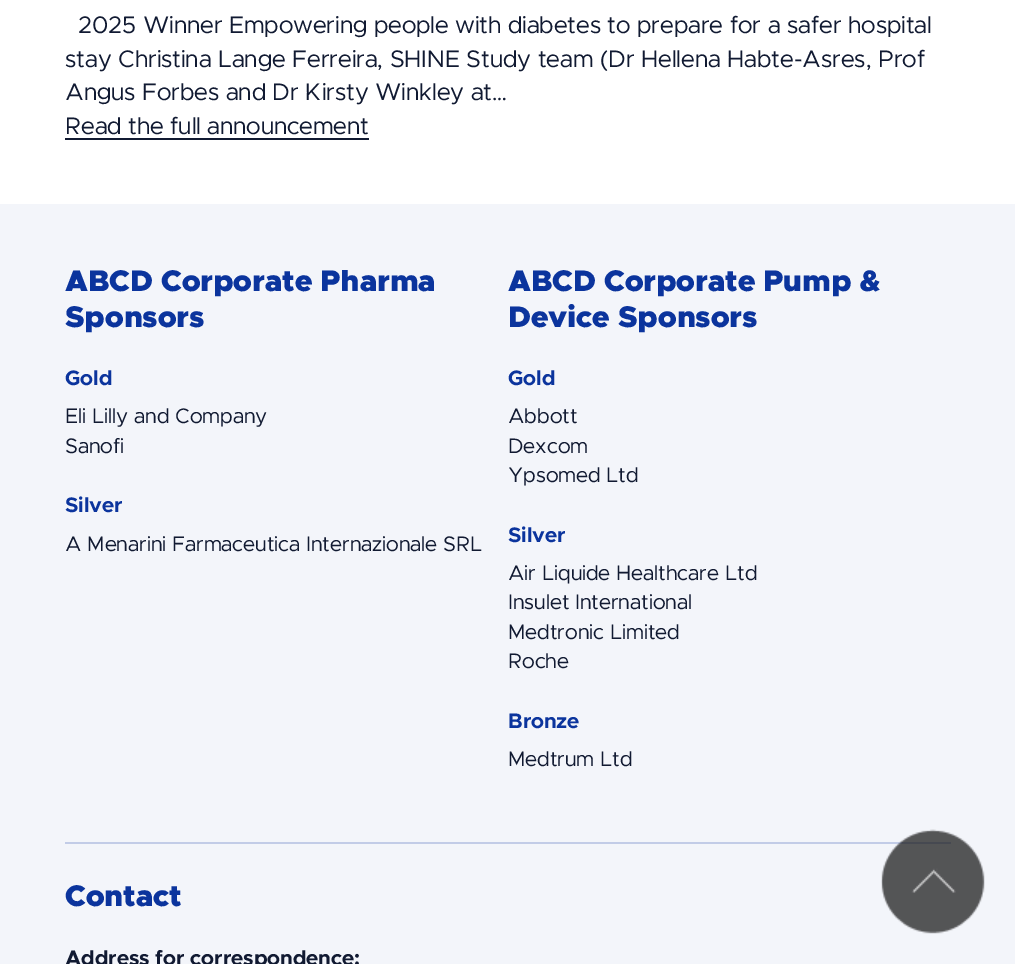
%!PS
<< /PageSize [1015 964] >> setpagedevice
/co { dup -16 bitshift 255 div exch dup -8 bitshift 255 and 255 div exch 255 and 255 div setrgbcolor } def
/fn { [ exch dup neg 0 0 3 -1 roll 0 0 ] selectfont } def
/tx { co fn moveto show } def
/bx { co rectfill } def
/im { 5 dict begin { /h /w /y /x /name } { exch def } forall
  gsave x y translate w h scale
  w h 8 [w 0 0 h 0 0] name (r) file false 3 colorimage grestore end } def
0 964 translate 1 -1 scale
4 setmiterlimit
0 0 1015 964 16#FFFFFF bx
65 138 304 2 16#111A32 bx
0 204 1015 760 16#F3F5FA bx
65 842 886 2 16#C2CCE7 bx
(media/1.raw) 881 829 104 105 im
(2025 Winner Empowering people with diabetes to prepare for a safer hospital) 78 33 /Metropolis-Regular 24 16#111A32 tx
(stay Christina Lange Ferreira, SHINE Study team \(Dr Hellena Habte-Asres, Prof) 65 67 /Metropolis-Regular 24 16#111A32 tx
(Angus Forbes and Dr Kirsty Winkley at…) 65 100 /Metropolis-Regular 24 16#111A32 tx
(Read the full announcement) 65 134 /Metropolis-Regular 24 16#111A32 tx
(ABCD Corporate Pharma) 65 291 /Metropolis-Black 30 16#0B349D tx
(Sponsors) 65 327 /Metropolis-Black 30 16#0B349D tx
(Gold) 65 385 /Metropolis-Bold 21 16#0B349D tx
(Eli Lilly and Company) 65 423 /Metropolis-Regular 21 16#111A32 tx
(Sanofi) 65 453 /Metropolis-Regular 21 16#111A32 tx
(Silver) 65 512 /Metropolis-Bold 21 16#0B349D tx
(A Menarini Farmaceutica Internazionale SRL) 65 551 /Metropolis-Regular 21 16#111A32 tx
(ABCD Corporate Pump &) 508 291 /Metropolis-Black 30 16#0B349D tx
(Device Sponsors) 508 327 /Metropolis-Black 30 16#0B349D tx
(Gold) 508 385 /Metropolis-Bold 21 16#0B349D tx
(Abbott) 508 423 /Metropolis-Regular 21 16#111A32 tx
(Dexcom) 508 453 /Metropolis-Regular 21 16#111A32 tx
(Ypsomed Ltd) 508 482 /Metropolis-Regular 21 16#111A32 tx
(Silver) 508 542 /Metropolis-Bold 21 16#0B349D tx
(Air Liquide Healthcare Ltd) 508 580 /Metropolis-Regular 21 16#111A32 tx
(Insulet International) 508 609 /Metropolis-Regular 21 16#111A32 tx
(Medtronic Limited) 508 639 /Metropolis-Regular 21 16#111A32 tx
(Roche) 508 668 /Metropolis-Regular 21 16#111A32 tx
(Bronze) 508 728 /Metropolis-Bold 21 16#0B349D tx
(Medtrum Ltd) 508 766 /Metropolis-Regular 21 16#111A32 tx
(Contact) 65 906 /Metropolis-Black 30 16#0B349D tx
(Address for correspondence:) 65 965 /Metropolis-Bold 21 16#111A32 tx
showpage
